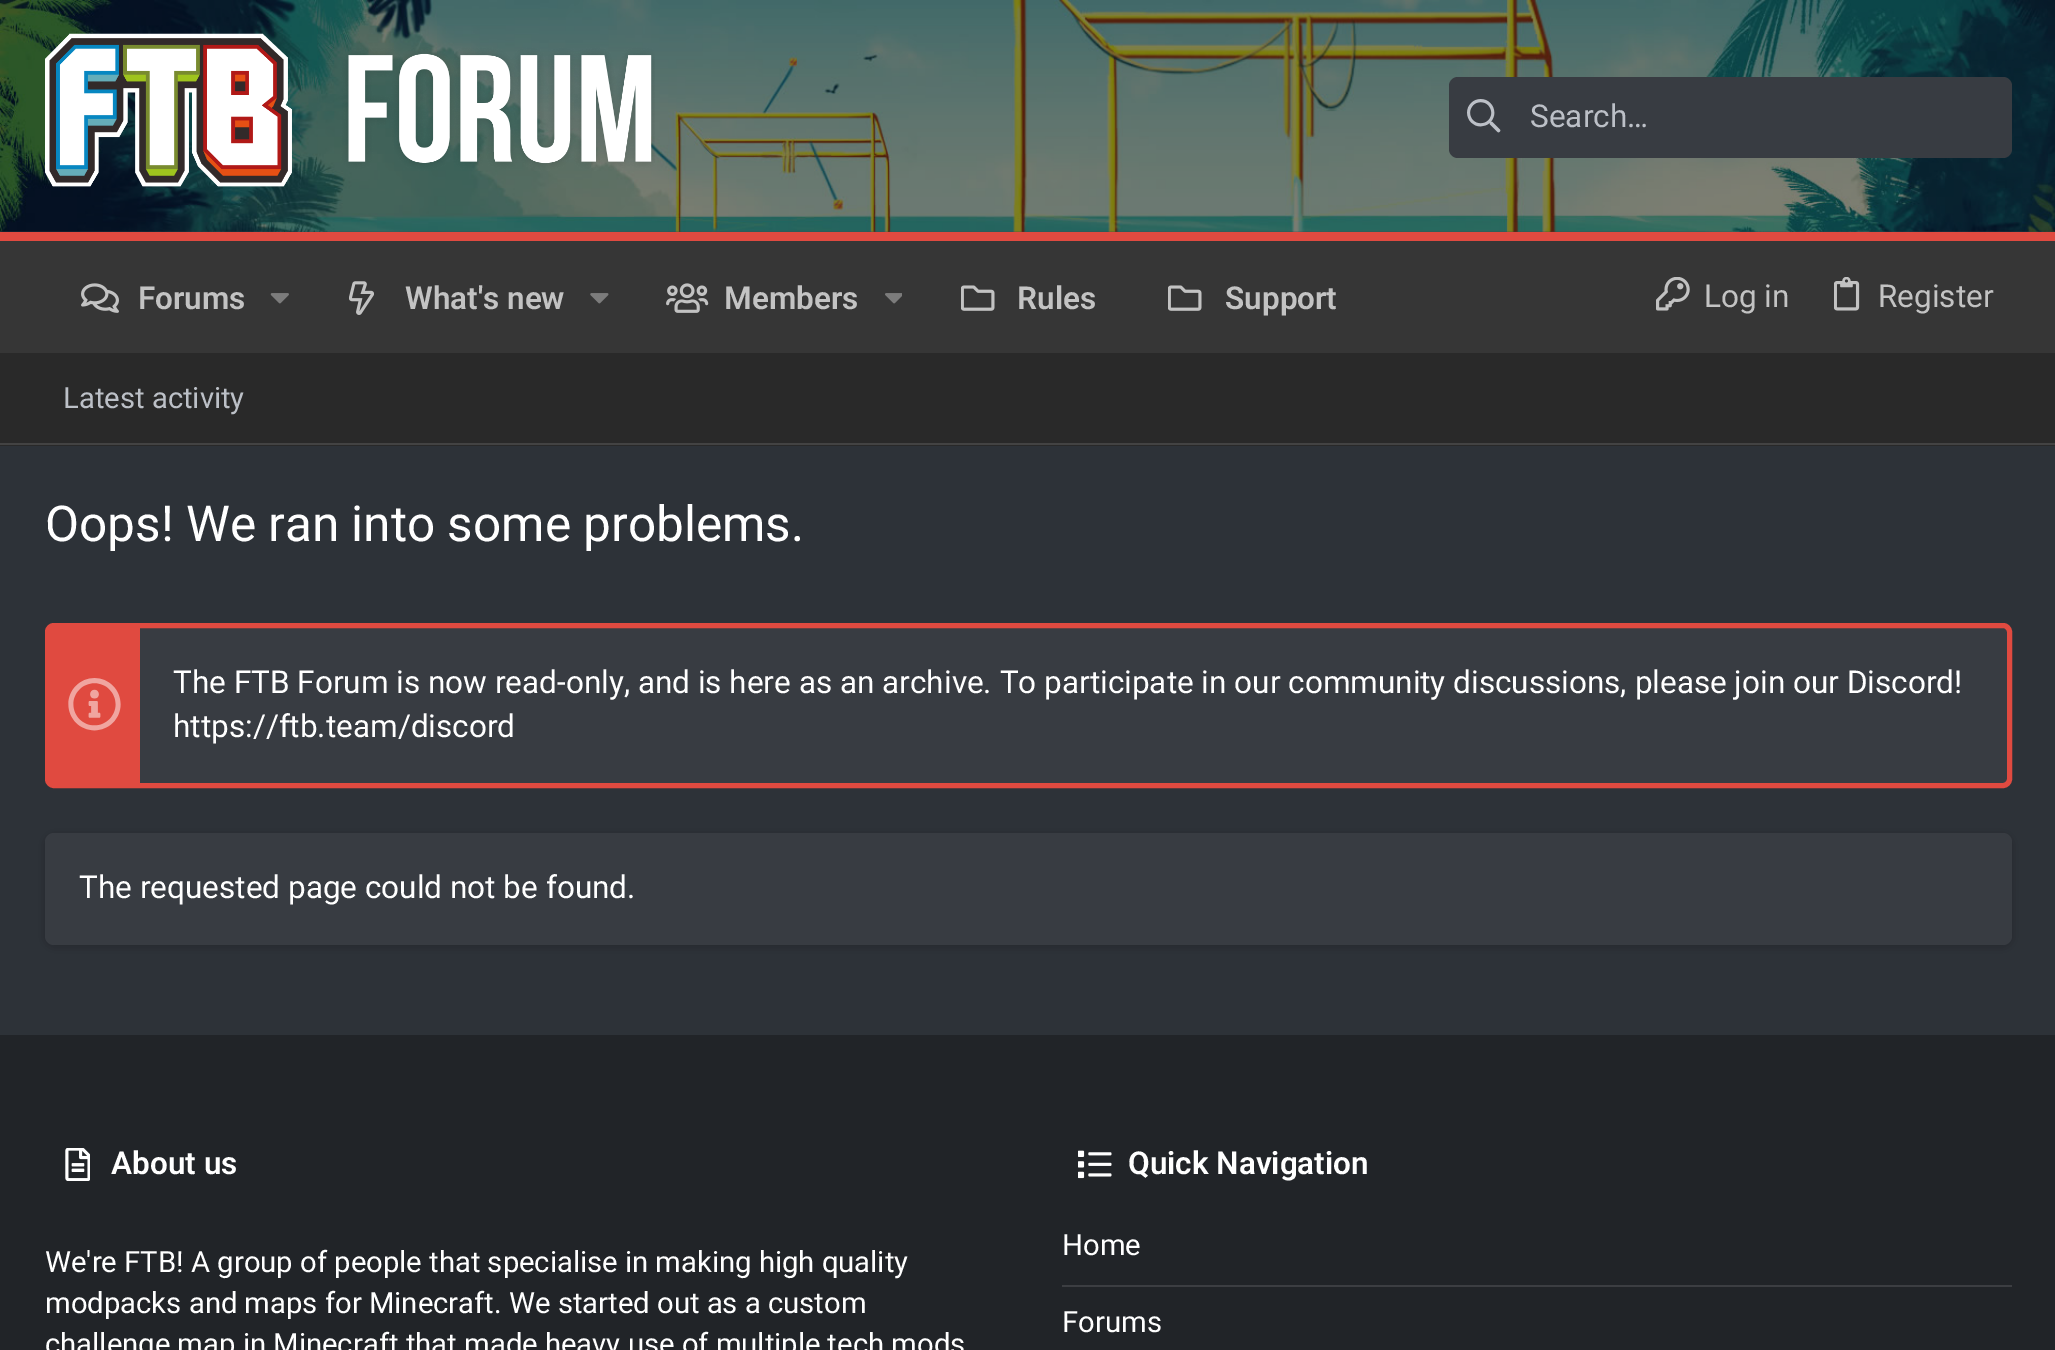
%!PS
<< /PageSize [2055 1350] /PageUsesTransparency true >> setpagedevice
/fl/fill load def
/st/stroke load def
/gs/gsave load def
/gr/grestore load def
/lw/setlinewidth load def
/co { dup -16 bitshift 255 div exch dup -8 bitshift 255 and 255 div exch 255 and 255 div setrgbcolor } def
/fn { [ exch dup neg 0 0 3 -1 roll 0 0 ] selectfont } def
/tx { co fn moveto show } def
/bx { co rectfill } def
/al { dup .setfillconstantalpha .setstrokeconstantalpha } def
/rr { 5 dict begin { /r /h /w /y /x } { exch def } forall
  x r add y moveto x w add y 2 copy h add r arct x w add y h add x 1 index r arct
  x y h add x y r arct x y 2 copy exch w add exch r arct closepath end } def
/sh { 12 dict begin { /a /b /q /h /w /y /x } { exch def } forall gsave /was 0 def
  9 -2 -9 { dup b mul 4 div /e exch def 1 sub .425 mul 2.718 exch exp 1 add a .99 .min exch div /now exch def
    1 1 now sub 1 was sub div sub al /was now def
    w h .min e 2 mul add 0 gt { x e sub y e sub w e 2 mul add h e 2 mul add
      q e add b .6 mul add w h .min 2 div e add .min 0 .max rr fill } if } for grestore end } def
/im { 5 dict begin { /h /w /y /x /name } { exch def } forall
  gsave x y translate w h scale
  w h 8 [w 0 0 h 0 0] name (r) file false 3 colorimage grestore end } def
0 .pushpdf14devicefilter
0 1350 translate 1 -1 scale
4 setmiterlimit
0 0 2055 1350 16#2D3238 bx
(media/1.raw) 0 0 2055 232 im
(media/2.raw) 45 33 610 154 im
16#383C42 co
1449 77 563 81 9 rr fl
(media/3.raw) 1467 99 34 34 im
0 241 2055 112 16#363636 bx
0 232 2055 9 16#E04A40 bx
(media/4.raw) 81 283 38 30 im
(media/5.raw) 270 293 19 11 im
(media/6.raw) 349 281 25 34 im
(media/7.raw) 590 293 19 11 im
(media/8.raw) 666 283 43 30 im
(media/9.raw) 885 293 17 11 im
(media/10.raw) 961 285 34 26 im
(media/10.raw) 1168 285 34 26 im
(media/11.raw) 1656 277 34 34 im
(media/12.raw) 1834 277 26 34 im
0 353 2055 93 16#292929 bx
0 443 2055 2 16#434343 bx
16#383C42 co
47.5 625.5 1962 160 6.5 rr gs fl gr
16#E04A40 co
5 lw
st
50 628 90 155 16#E04A40 bx
(media/13.raw) 68 678 53 53 im
16#000000 co
45 835 1967 112 9 5.5 .2 sh
16#383C42 co
45 833 1967 112 9 rr fl
0 1035 2055 315 16#212428 bx
(media/14.raw) 65 1148 25 33 im
(media/15.raw) 1078 1150 34 29 im
1062 1285 950 2 16#3C3E42 bx
(Search…) 1530 127 /Roboto-Regular 31.5 16#BCC0C7 tx
(Forums) 138 309 /Roboto-SemiBold 31.5 16#C3C3C3 tx
(What's new) 405 309 /Roboto-SemiBold 31.5 16#C3C3C3 tx
(Members) 724 309 /Roboto-SemiBold 31.5 16#C3C3C3 tx
(Rules) 1017 309 /Roboto-SemiBold 31.5 16#C3C3C3 tx
(Support) 1225 309 /Roboto-SemiBold 31.5 16#C3C3C3 tx
(Log in) 1704 307 /Roboto-Regular 31.5 16#C3C3C3 tx
(Register) 1878 307 /Roboto-Regular 31.5 16#C3C3C3 tx
(Latest activity) 63 408 /Roboto-Regular 29.25 16#BCC0C7 tx
(Oops! We ran into some problems.) 45 541 /Roboto-Regular 49.5 16#FFFFFF tx
(The FTB Forum is now read-only, and is here as an archive. To participate in our community discussions, please join our Discord!) 173 693 /Roboto-Regular 31.5 16#FFFFFF tx
(https://ftb.team/discord) 173 737 /Roboto-Regular 31.5 16#FFFFFF tx
(The requested page could not be found.) 79 898 /Roboto-Regular 31.5 16#FFFFFF tx
(About us) 111 1174 /Roboto-SemiBold 31.5 16#FFFFFF tx
(We're FTB! A group of people that specialise in making high quality) 45 1272 /Roboto-Regular 29.25 16#FFFFFF tx
(modpacks and maps for Minecraft. We started out as a custom) 45 1313 /Roboto-Regular 29.25 16#FFFFFF tx
(challenge map in Minecraft that made heavy use of multiple tech mods) 45 1354 /Roboto-Regular 29.25 16#FFFFFF tx
(Quick Navigation) 1128 1174 /Roboto-SemiBold 31.5 16#FFFFFF tx
(Home) 1062 1255 /Roboto-Regular 29.25 16#FFFFFF tx
(Forums) 1062 1332 /Roboto-Regular 29.25 16#FFFFFF tx
.poppdf14devicefilter showpage
